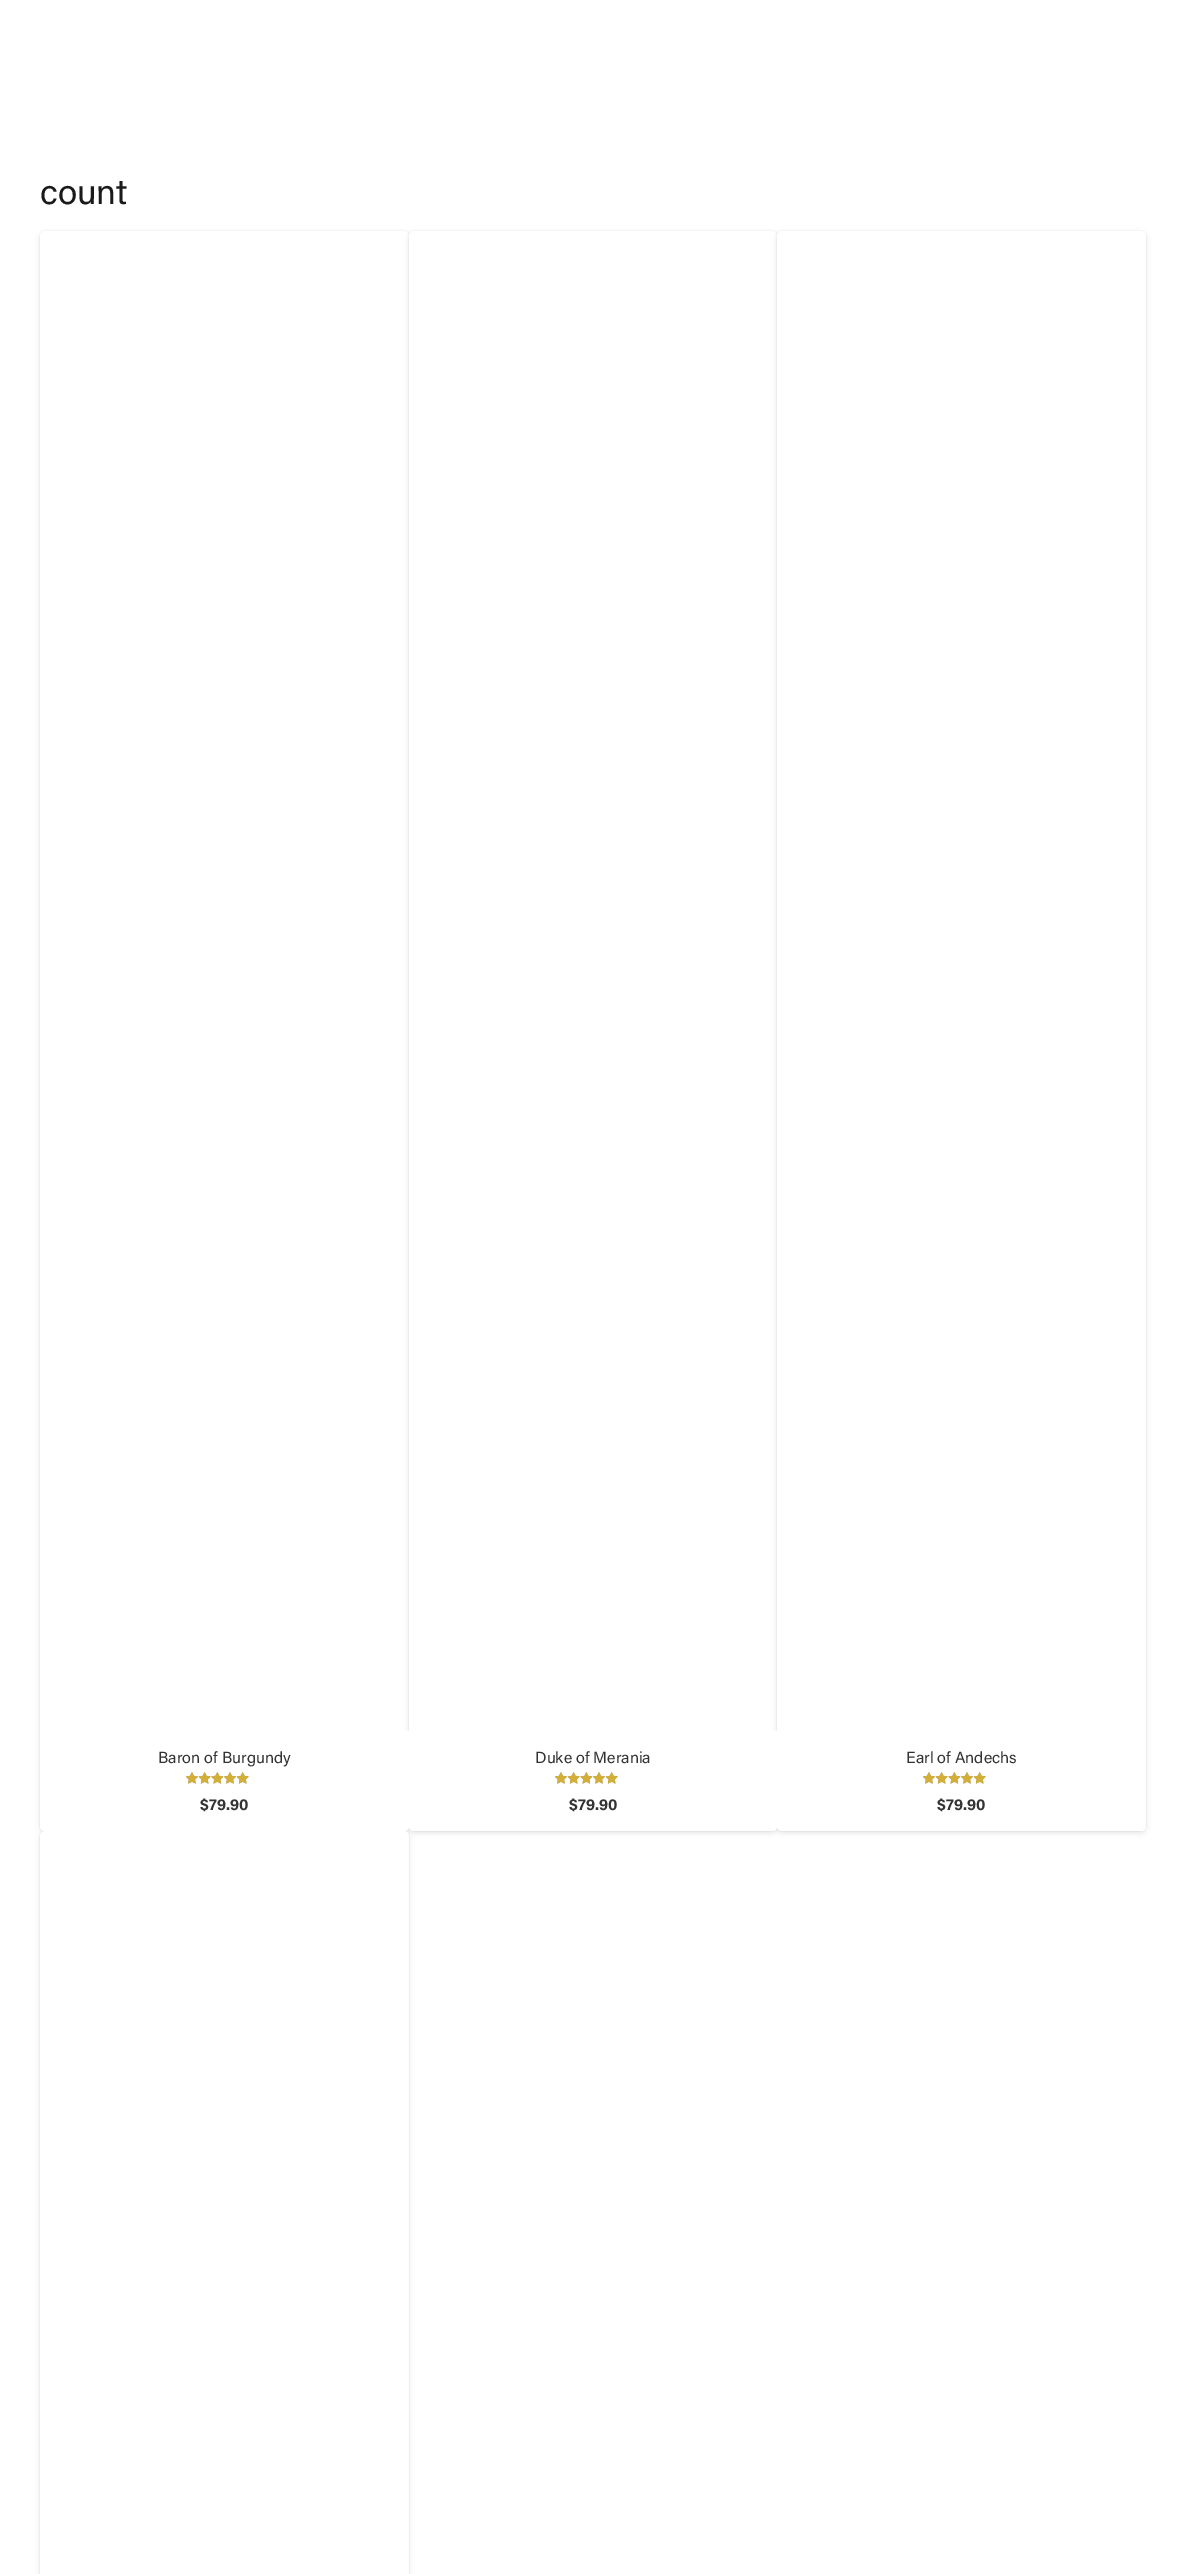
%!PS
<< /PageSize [1186 2574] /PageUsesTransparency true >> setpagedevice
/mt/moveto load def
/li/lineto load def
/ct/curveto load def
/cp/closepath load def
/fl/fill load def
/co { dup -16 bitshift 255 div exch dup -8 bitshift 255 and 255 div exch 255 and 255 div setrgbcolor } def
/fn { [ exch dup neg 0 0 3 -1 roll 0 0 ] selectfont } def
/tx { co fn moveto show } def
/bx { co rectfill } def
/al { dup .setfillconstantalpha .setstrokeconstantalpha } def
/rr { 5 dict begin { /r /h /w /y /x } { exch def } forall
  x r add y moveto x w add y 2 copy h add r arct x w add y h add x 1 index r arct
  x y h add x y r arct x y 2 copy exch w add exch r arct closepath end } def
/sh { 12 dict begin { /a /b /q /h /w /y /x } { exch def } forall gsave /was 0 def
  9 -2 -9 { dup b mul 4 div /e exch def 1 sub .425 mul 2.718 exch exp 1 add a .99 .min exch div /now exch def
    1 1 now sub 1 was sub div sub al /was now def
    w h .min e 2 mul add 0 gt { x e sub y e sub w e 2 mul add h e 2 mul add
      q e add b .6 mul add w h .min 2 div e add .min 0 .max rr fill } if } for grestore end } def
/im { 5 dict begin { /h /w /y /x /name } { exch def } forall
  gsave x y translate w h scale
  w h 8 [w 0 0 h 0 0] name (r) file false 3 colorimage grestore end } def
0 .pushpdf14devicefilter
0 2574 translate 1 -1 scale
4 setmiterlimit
0 0 1186 2574 16#FFFFFF bx
16#000000 co
40 233 369 1600 5 2.5 .1 sh
40 231 369 1600 5 .5 .1 sh
16#FFFFFF co
40 231 369 1600 5 rr fl
16#000000 co
409 233 368 1600 5 2.5 .1 sh
409 231 368 1600 5 .5 .1 sh
16#FFFFFF co
409 231 368 1600 5 rr fl
16#000000 co
40 1833 369 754 5 2.5 .1 sh
40 1831 369 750 5 .5 .1 sh
16#FFFFFF co
40 1731 mt 409 1731 li 409 1826 li 409 1829 407 1831 404 1831 ct 45 1831 li 42 1831 40 1829 40 1826 ct cp fl
(media/1.raw) 186 1772 63 12 im
(media/2.raw) 186 1772 63 12 im
16#000000 co
777 233 369 1600 5 2.5 .1 sh
777 231 369 1600 5 .5 .1 sh
16#FFFFFF co
409 1731 mt 777 1731 li 777 1826 li 777 1829 775 1831 772 1831 ct 414 1831 li 411 1831 409 1829 409 1826 ct cp fl
(media/1.raw) 555 1772 63 12 im
(media/2.raw) 555 1772 63 12 im
777 231 369 1600 5 rr fl
777 1731 mt 1146 1731 li 1146 1826 li 1146 1829 1144 1831 1141 1831 ct 782 1831 li 779 1831 777 1829 777 1826 ct cp fl
(media/1.raw) 923 1772 63 12 im
(media/2.raw) 923 1772 63 12 im
40 1831 369 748 5 rr fl
(count) 40 204 /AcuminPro-Regular 35 16#1A1A1A tx
(Baron of Burgundy) 158 1763 /AcuminPro-Regular 16 16#333333 tx
($79.90) 200 1810 /AcuminPro-Bold 16 16#333333 tx
(Duke of Merania) 535 1763 /AcuminPro-Regular 16 16#333333 tx
($79.90) 569 1810 /AcuminPro-Bold 16 16#333333 tx
(Earl of Andechs) 906 1763 /AcuminPro-Regular 16 16#333333 tx
($79.90) 937 1810 /AcuminPro-Bold 16 16#333333 tx
.poppdf14devicefilter showpage
